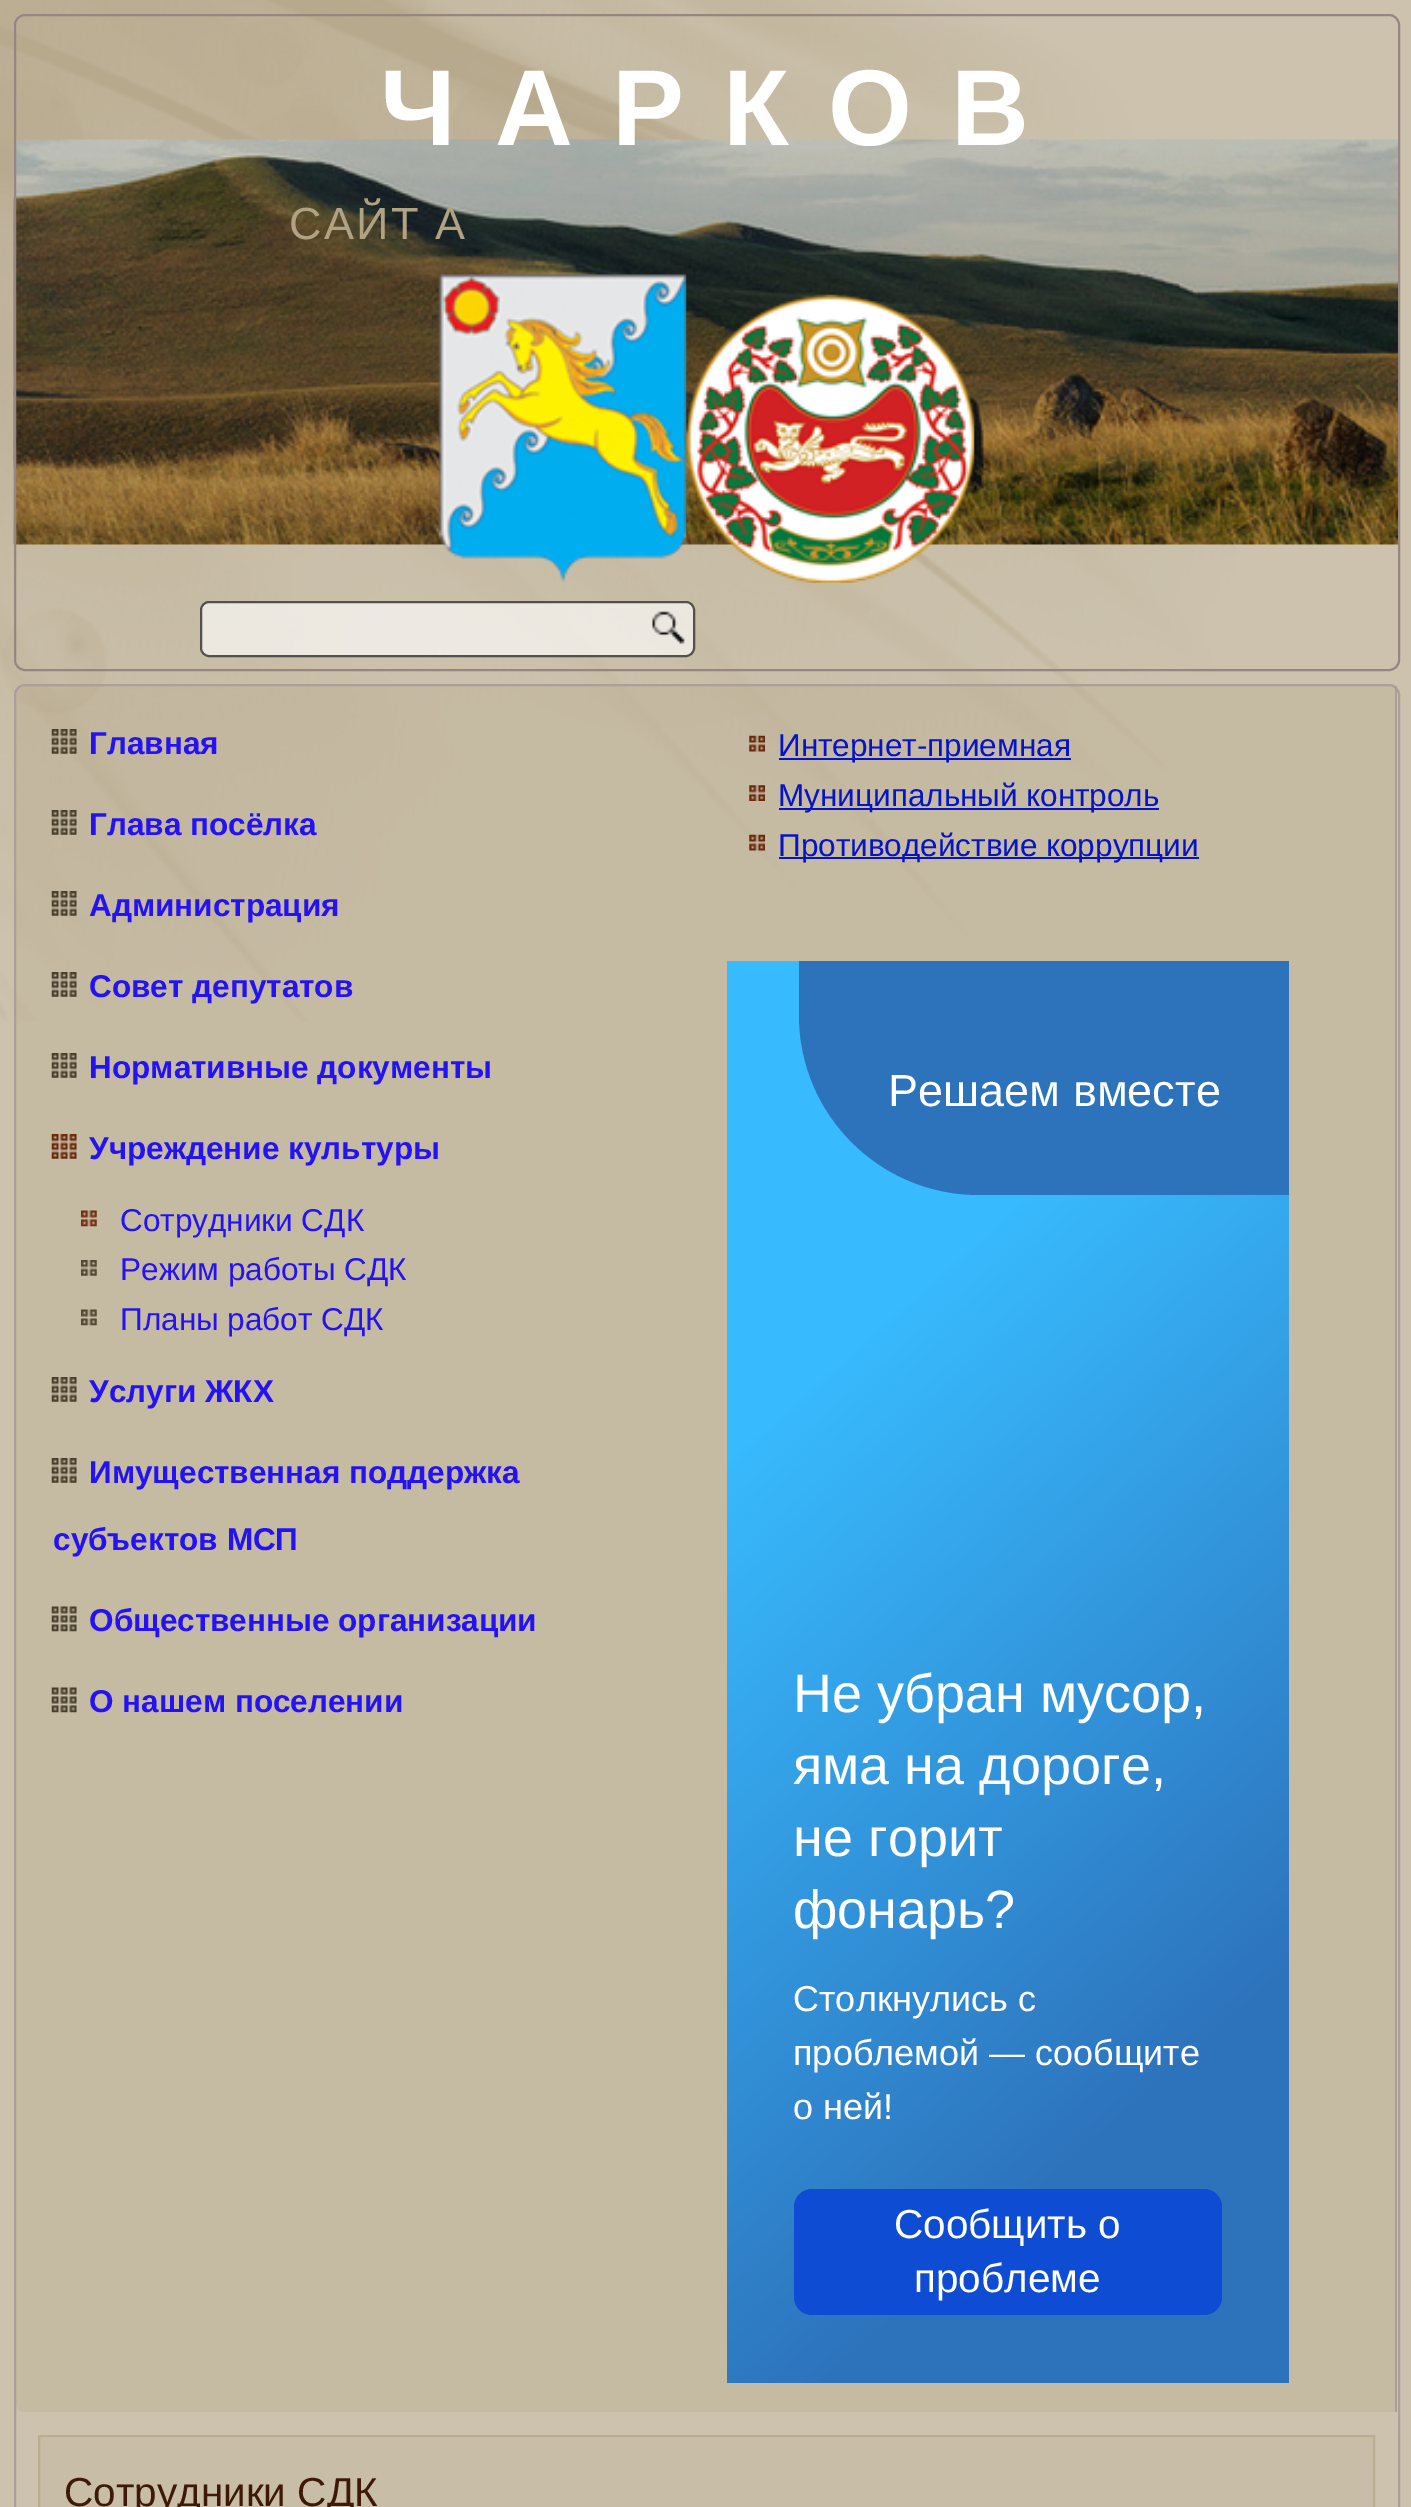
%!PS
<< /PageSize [1411 2507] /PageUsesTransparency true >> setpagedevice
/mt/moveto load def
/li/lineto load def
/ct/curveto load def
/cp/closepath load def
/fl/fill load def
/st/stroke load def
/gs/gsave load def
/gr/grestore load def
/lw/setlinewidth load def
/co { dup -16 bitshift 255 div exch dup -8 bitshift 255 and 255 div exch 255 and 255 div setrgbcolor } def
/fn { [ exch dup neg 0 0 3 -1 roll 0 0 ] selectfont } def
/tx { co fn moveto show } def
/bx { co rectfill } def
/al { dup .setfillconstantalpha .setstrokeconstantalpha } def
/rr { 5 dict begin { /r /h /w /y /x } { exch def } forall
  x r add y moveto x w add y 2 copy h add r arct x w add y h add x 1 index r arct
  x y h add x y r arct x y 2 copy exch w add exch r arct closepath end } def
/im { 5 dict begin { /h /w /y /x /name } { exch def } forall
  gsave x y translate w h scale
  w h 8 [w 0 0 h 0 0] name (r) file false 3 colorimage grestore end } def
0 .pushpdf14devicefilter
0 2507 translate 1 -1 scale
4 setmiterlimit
0 0 1411 2507 16#CCC2AD bx
(media/1.raw) 0 0 1236 1021 im
(media/2.raw) 13 139 1385 406 im
16#978582 co
2 lw
15 15 1384 655 10 rr st
(media/3.raw) 438 274 249 309 im
(media/4.raw) 686 294 289 289 im
0.65 al
16#FFFFFF co
200 601 495 56 9 rr fl
16#000000 co
201 602 493 54 8 rr st
1 al
(media/5.raw) 652 611 33 34 im
16#AB9E9B co
15 685 1384 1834 10 rr st
0.2 al
16#A99875 co
25 686 mt 1397 686 li 1397 2412 li 25 2412 li 20 2412 16 2408 16 2403 ct 16 695 li 16 690 20 686 25 686 ct cp fl
1 al
1395 686 2 1726 16#AB9E9B bx
(media/6.raw) 51 729 26 25 im
(media/7.raw) 51 810 26 25 im
(media/8.raw) 51 891 26 25 im
(media/9.raw) 51 972 26 25 im
(media/10.raw) 51 1053 26 25 im
(media/11.raw) 51 1134 26 25 im
(media/12.raw) 81 1210 16 17 im
(media/13.raw) 81 1260 16 16 im
(media/14.raw) 81 1309 16 17 im
(media/10.raw) 51 1377 26 25 im
(media/10.raw) 51 1458 26 25 im
(media/15.raw) 51 1606 26 26 im
(media/15.raw) 51 1687 26 26 im
(media/16.raw) 749 735 16 17 im
779 758 292 2 16#0613C6 bx
(media/17.raw) 749 785 16 16 im
779 808 380 2 16#0613C6 bx
(media/18.raw) 749 834 16 17 im
779 857 420 2 16#0613C6 bx
gs 727 961 mt 1289 961 li 1289 2383 li 727 2383 li cp clip newpath
<< /ShadingType 2 /ColorSpace /DeviceRGB /Coords [531 1135 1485 2209] /Extend [true true] /Function << /FunctionType 3 /Domain [0 1] /Functions [<< /FunctionType 2 /Domain [0 1] /C0 [.22 .729 .996] /C1 [.22 .729 .996] /N 1 >> << /FunctionType 2 /Domain [0 1] /C0 [.22 .729 .996] /C1 [.176 .451 .737] /N 1 >> << /FunctionType 2 /Domain [0 1] /C0 [.176 .451 .737] /C1 [.176 .451 .737] /N 1 >>] /Bounds [.26 .79] /Encode [0 1 0 1 0 1] >> >> shfill gr
16#2D73BC co
799 961 mt 1289 961 li 1289 1195 li 979 1195 li 879.5 1195 799 1114.5 799 1015 ct cp fl
16#0D4CD3 co
794 2189 428 126 18 rr fl
16#C8BEA7 co
39 2436 mt 1374 2436 li 1374 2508 li 39 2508 li cp gs fl gr
16#BAAD91 co
st
/LiberationSans-Bold 108 fn
16#FFFFFF co
380 145 mt 4.5 0 (Ч А Р К О В) ashow
/LiberationSans-Regular 45 fn
16#B0A282 co
289 239 mt 2.25 0 (САЙТ А) ashow
(Главная) 89 754 /LiberationSans-Bold 31.5 16#2412F3 tx
(Глава посёлка) 89 835 /LiberationSans-Bold 31.5 16#2412F3 tx
(Администрация) 89 916 /LiberationSans-Bold 31.5 16#2412F3 tx
(Совет депутатов) 89 997 /LiberationSans-Bold 31.5 16#2412F3 tx
(Нормативные документы) 89 1078 /LiberationSans-Bold 31.5 16#2412F3 tx
(Учреждение культуры) 89 1159 /LiberationSans-Bold 31.5 16#2412F3 tx
(Сотрудники СДК) 120 1231 /LiberationSans-Regular 31.5 16#2412F3 tx
(Режим работы СДК) 120 1280 /LiberationSans-Regular 31.5 16#2412F3 tx
(Планы работ СДК) 120 1330 /LiberationSans-Regular 31.5 16#2412F3 tx
(Услуги ЖКХ) 89 1402 /LiberationSans-Bold 31.5 16#2412F3 tx
(Имущественная поддержка) 89 1483 /LiberationSans-Bold 31.5 16#2412F3 tx
(субъектов МСП) 53 1550 /LiberationSans-Bold 31.5 16#2412F3 tx
(Общественные организации) 89 1631 /LiberationSans-Bold 31.5 16#2412F3 tx
(О нашем поселении) 89 1712 /LiberationSans-Bold 31.5 16#2412F3 tx
(Интернет-приемная) 778 756 /LiberationSans-Regular 31.5 16#0613C6 tx
(Муниципальный контроль) 778 806 /LiberationSans-Regular 31.5 16#0613C6 tx
(Противодействие коррупции) 778 856 /LiberationSans-Regular 31.5 16#0613C6 tx
(Решаем вместе) 888 1106 /LiberationSans-Regular 45 16#FFFFFF tx
(Не убран мусор,) 793 1712 /LiberationSans-Regular 54 16#FFFFFF tx
(яма на дороге,) 793 1784 /LiberationSans-Regular 54 16#FFFFFF tx
(не горит) 793 1856 /LiberationSans-Regular 54 16#FFFFFF tx
(фонарь?) 793 1928 /LiberationSans-Regular 54 16#FFFFFF tx
(Столкнулись с) 793 2011 /LiberationSans-Regular 36 16#FFFFFF tx
(проблемой — сообщите) 793 2065 /LiberationSans-Regular 36 16#FFFFFF tx
(о ней!) 793 2119 /LiberationSans-Regular 36 16#FFFFFF tx
(Сообщить о) 894 2238 /LiberationSans-Regular 40.5 16#FFFFFF tx
(проблеме) 914 2292 /LiberationSans-Regular 40.5 16#FFFFFF tx
(Сотрудники СДК) 64 2506 /LiberationSans-Regular 40.5 16#3F1908 tx
.poppdf14devicefilter showpage
